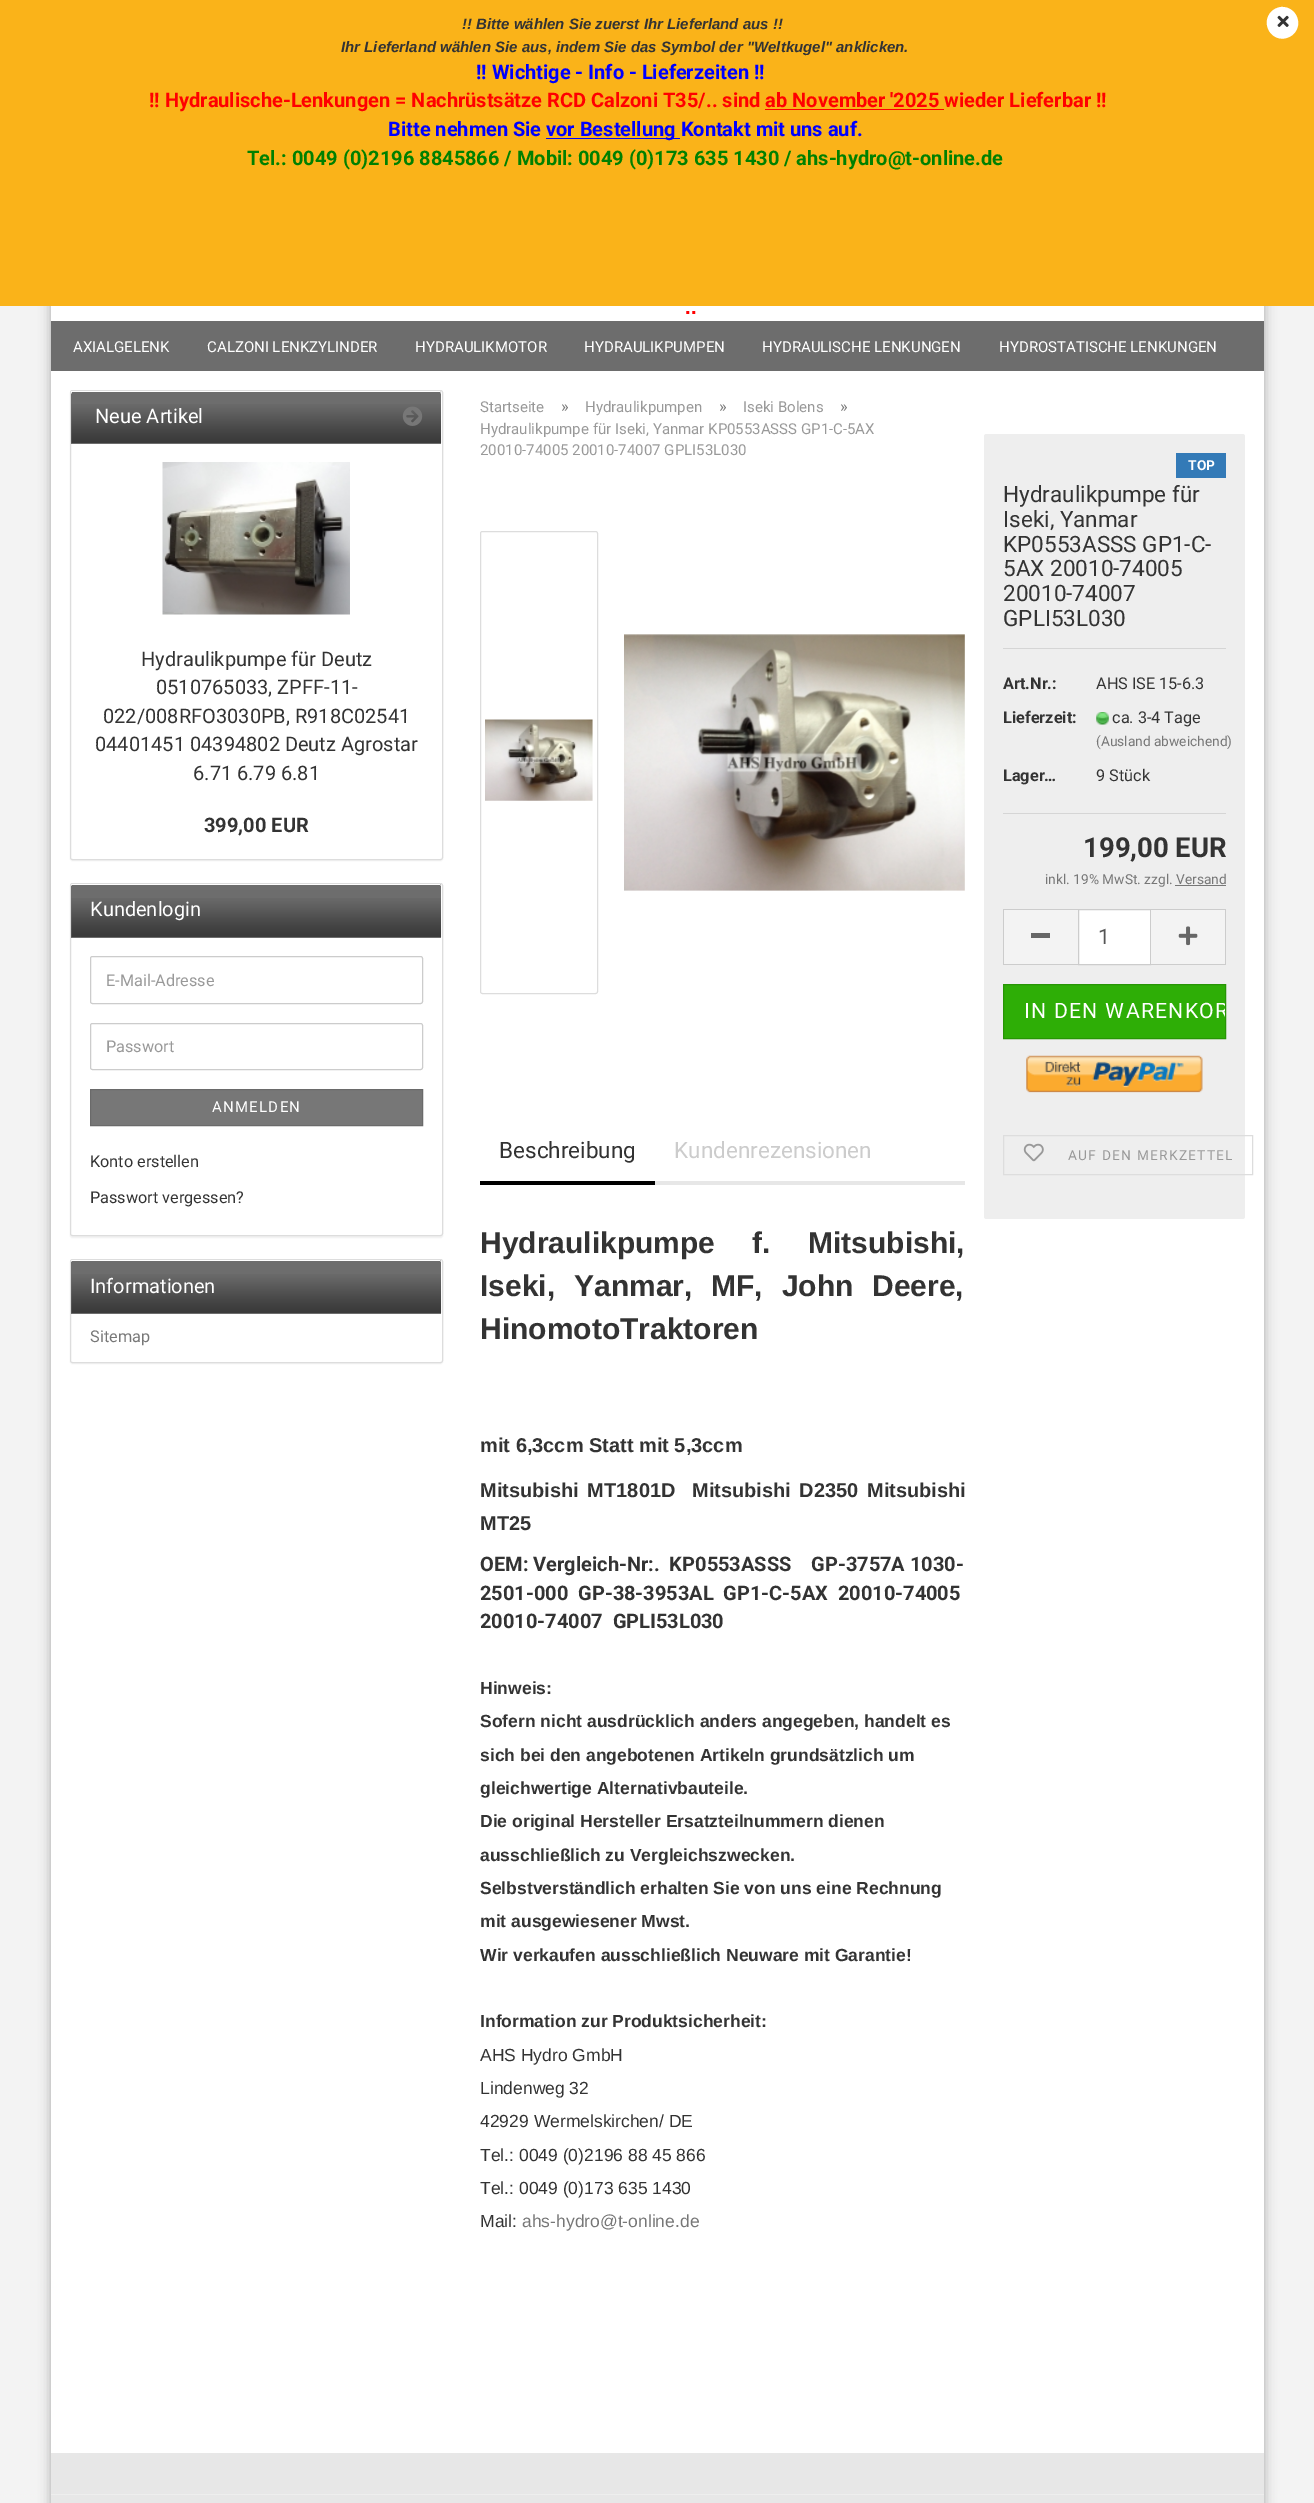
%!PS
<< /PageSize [1314 2503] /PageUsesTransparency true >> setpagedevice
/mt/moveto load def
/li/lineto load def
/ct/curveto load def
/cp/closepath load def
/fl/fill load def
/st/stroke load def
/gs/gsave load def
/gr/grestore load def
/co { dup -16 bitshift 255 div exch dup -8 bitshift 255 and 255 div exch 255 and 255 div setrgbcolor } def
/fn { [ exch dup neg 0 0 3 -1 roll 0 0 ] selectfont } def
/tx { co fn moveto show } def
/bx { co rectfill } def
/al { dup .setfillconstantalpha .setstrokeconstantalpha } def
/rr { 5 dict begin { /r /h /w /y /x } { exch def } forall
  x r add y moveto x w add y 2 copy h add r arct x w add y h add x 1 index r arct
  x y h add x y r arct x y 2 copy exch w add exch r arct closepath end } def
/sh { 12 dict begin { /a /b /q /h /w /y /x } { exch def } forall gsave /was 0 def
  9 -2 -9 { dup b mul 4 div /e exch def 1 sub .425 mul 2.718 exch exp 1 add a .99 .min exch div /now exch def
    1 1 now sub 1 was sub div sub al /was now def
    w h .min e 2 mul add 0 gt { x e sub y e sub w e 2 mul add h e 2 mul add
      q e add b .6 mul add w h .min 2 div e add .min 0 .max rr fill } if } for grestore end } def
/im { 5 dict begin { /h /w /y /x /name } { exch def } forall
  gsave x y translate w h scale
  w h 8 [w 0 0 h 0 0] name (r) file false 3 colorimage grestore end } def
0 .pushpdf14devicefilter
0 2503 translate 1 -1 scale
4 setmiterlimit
0 0 1314 2503 16#F3F3F3 bx
16#000000 co
51 44 1213 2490 13 6 .3 sh
51 371 1213 2082 16#FFFFFF bx
51 306 1213 15 16#FFFFFF bx
0 0 1314 306 16#FAB319 bx
765 109 179 1 16#FF0000 bx
546 138 134 1 16#0000FF bx
16#FFFFFF co
1271.5 11.5 mt 1274 9 1277.5 7.5 1281 7 ct 1295.5 6 1304 23.5 1293.5 34 ct 1291 36.5 1287.5 38 1284 38.5 ct 1269.5 40 1261 22 1271.5 11.5 ct cp fl
(media/1.raw) 1277 15 12 12 im
51 321 1213 50 16#6D6D6D bx
16#000000 co
70 391 373 470 2.5 .5 .05 sh
16#FFFFFF co
70.5 390.5 372 469 2 rr gs fl gr
16#DDDDDD co
st
16#6D6D6D co
72 391 mt 440 391 li 440.5 391 441 391.5 441 392 ct 441 444 li 71 444 li 71 392 li 71 391.5 71.5 391 72 391 ct cp fl
(media/2.raw) 71 404 371 39 im
16#FFFFFF co
72 392 mt 440 392 li 441 393 li 441 394 li 441 393 441 391 440 391 ct 71 391 li 71 394 li cp fl
(media/3.raw) 402 406 21 20 im
(media/4.raw) 162 462 188 153 im
16#000000 co
70 884 373 354 2.5 .5 .05 sh
16#FFFFFF co
70.5 883.5 372 352 2 rr gs fl gr
16#DDDDDD co
st
16#6D6D6D co
72 884 mt 440 884 li 440.5 884 441 884.5 441 885 ct 441 938 li 71 938 li 71 885 li 71 884.5 71.5 884 72 884 ct cp fl
(media/5.raw) 71 898 371 39 im
16#FFFFFF co
72 885 mt 440 885 li 441 885 441 886 441 886 ct 441 885 li 440 884 li 72 884 li 71 884 71 885 71 886 ct cp fl
16#CCCCCC co
90.5 956.5 332 47 2 rr st
90.5 1023.5 332 46 2 rr st
16#777777 co
90.5 1089.5 mt 422.5 1089.5 li 422.5 1125.5 li 90.5 1125.5 li cp gs fl gr
16#6A6A6A co
st
16#000000 co
70 1260 373 104 2.5 .5 .05 sh
16#FFFFFF co
70.5 1259.5 372 103 2 rr gs fl gr
16#DDDDDD co
st
16#6D6D6D co
72 1260 mt 440 1260 li 440.5 1260 441 1260.5 441 1261 ct 441 1314 li 71 1314 li 71 1261 li 71 1260.5 71.5 1260 72 1260 ct cp fl
(media/2.raw) 71 1274 371 39 im
16#FFFFFF co
72 1261 mt 440 1261 li 441 1261 441 1262 441 1262 ct 441 1261 li 440 1260 li 72 1260 li 71 1260 71 1261 71 1262 ct cp fl
16#DDDDDD co
480.5 531.5 117 462 2 rr st
(media/6.raw) 485 719 108 82 im
(media/7.raw) 624 634 341 257 im
16#EEEEEE co
984 434 261 785 2.5 rr fl
1176 453 50 25 16#337AB7 bx
1003 648 223 1 16#D5D5D5 bx
1003 813 223 1 16#D5D5D5 bx
(media/8.raw) 1096 712 13 13 im
1175 885 51 1 16#777777 bx
1004 910 74 54 16#F3F3F3 bx
1003 909 75 1 16#CCCCCC bx
1003 964 75 1 16#CCCCCC bx
1003 909 1 56 16#CCCCCC bx
1031 933 19 5 16#666666 bx
16#FFFFFF co
1078.5 909.5 mt 1150.5 909.5 li 1150.5 964.5 li 1078.5 964.5 li cp gs fl gr
16#CCCCCC co
st
1151 910 74 54 16#F3F3F3 bx
1151 909 75 1 16#CCCCCC bx
1225 909 1 56 16#CCCCCC bx
1151 964 75 1 16#CCCCCC bx
(media/9.raw) 1178 926 20 20 im
16#2EAE06 co
1003.5 984.5 mt 1225.5 984.5 li 1225.5 1038.5 li 1003.5 1038.5 li cp gs fl gr
16#279505 co
st
(media/10.raw) 1026 1055 177 38 im
16#DDDDDD co
1003.5 1135.5 249 39 rectstroke
(media/11.raw) 1023 1143 21 19 im
655 1181 310 4 16#E7E7E7 bx
480 1181 175 4 16#000000 bx
51 2453 1213 50 16#E7E7E7 bx
51 2494 1213 1 16#EEEEEE bx
(!! Bitte wählen Sie zuerst Ihr Lieferland aus !!) 462 29 /LiberationSans-BoldItalic 15 16#333333 tx
(Ihr Lieferland wählen Sie aus, indem Sie das Symbol der "Weltkugel" anklicken.) 341 52 /LiberationSans-BoldItalic 15 16#333333 tx
(!! Wichtige - Info - Lieferzeiten !!) 476 79 /Roboto-Bold 20 16#0000FF tx
(!! Hydraulische-Lenkungen = Nachrüstsätze RCD Calzoni T35/.. sind ab November '2025 wieder Lieferbar !!) 149 107 /Roboto-Bold 20 16#FF0000 tx
(Bitte nehmen Sie) 388 136 /Roboto-Bold 20 16#0000FF tx
(vor Bestellung Kontakt mit uns auf.) 546 136 /Roboto-Bold 20 16#0000FF tx
(Tel.: 0049 \(0\)2196 8845866 / Mobil: 0049 \(0\)173 635 1430 / ahs-hydro@t-online.de) 247 165 /Roboto-Bold 20 16#008000 tx
(..) 685 314 /LiberationSans-Bold 20 16#FF0000 tx
(AXIALGELENK) 73 352 /Roboto-Regular 15 16#FFFFFF tx
(CALZONI LENKZYLINDER) 207 352 /Roboto-Regular 15 16#FFFFFF tx
(HYDRAULIKMOTOR) 415 352 /Roboto-Regular 15 16#FFFFFF tx
(HYDRAULIKPUMPEN) 584 352 /Roboto-Regular 15 16#FFFFFF tx
(HYDRAULISCHE LENKUNGEN) 762 352 /Roboto-Regular 15 16#FFFFFF tx
(HYDROSTATISCHE LENKUNGEN) 999 352 /Roboto-Regular 15 16#FFFFFF tx
(Neue Artikel) 95 423 /Roboto-Regular 20 16#FFFFFF tx
(Hydraulikpumpe für Deutz) 141 666 /Roboto-Regular 20 16#333333 tx
(0510765033, ZPFF-11-) 156 694 /Roboto-Regular 20 16#333333 tx
(022/008RFO3030PB, R918C02541) 103 723 /Roboto-Regular 20 16#333333 tx
(04401451 04394802 Deutz Agrostar) 95 751 /Roboto-Regular 20 16#333333 tx
(6.71 6.79 6.81) 193 780 /Roboto-Regular 20 16#333333 tx
(399,00 EUR) 204 832 /Roboto-Bold 20 16#333333 tx
(Kundenlogin) 90 916 /Roboto-Regular 20 16#FFFFFF tx
(E-Mail-Adresse) 106 986 /Roboto-Regular 16.25 16#999999 tx
(Passwort) 106 1052 /Roboto-Regular 16.25 16#999999 tx
/Roboto-Regular 15 fn
16#FFFFFF co
212 1112 mt 1.25 0 (ANMELDEN) ashow
(Konto erstellen) 90 1167 /Roboto-Regular 16.25 16#333333 tx
(Passwort vergessen?) 90 1203 /Roboto-Regular 16.25 16#333333 tx
(Informationen) 90 1293 /Roboto-Regular 20 16#FFFFFF tx
(Sitemap) 90 1342 /Roboto-Regular 16.25 16#777777 tx
(Startseite) 480 412 /Roboto-Regular 15 16#999999 tx
(») 561 412 /Roboto-Regular 16.25 16#777777 tx
(Hydraulikpumpen) 585 412 /Roboto-Regular 15 16#999999 tx
(») 719 412 /Roboto-Regular 16.25 16#777777 tx
(Iseki Bolens) 743 412 /Roboto-Regular 15 16#999999 tx
(») 840 412 /Roboto-Regular 16.25 16#777777 tx
(Hydraulikpumpe für Iseki, Yanmar KP0553ASSS GP1-C-5AX) 480 434 /Roboto-Regular 15 16#999999 tx
(20010-74005 20010-74007 GPLI53L030) 480 455 /Roboto-Regular 15 16#999999 tx
(TOP) 1188 470 /Roboto-Bold 13.75 16#FFFFFF tx
(Hydraulikpumpe für) 1003 502 /Roboto-Regular 22.5 16#333333 tx
(Iseki, Yanmar) 1003 527 /Roboto-Regular 22.5 16#333333 tx
(KP0553ASSS GP1-C-) 1003 552 /Roboto-Regular 22.5 16#333333 tx
(5AX 20010-74005) 1003 576 /Roboto-Regular 22.5 16#333333 tx
(20010-74007) 1003 601 /Roboto-Regular 22.5 16#333333 tx
(GPLI53L030) 1003 626 /Roboto-Regular 22.5 16#333333 tx
(Art.Nr.:) 1003 689 /Roboto-Bold 16.25 16#333333 tx
(AHS ISE 15-6.3) 1096 689 /Roboto-Regular 16.25 16#333333 tx
(Lieferzeit:) 1003 723 /Roboto-Bold 16.25 16#333333 tx
(ca. 3-4 Tage) 1112 723 /Roboto-Regular 16.25 16#333333 tx
(\(Ausland abweichend\)) 1096 746 /Roboto-Regular 13.75 16#777777 tx
(Lager…) 1003 781 /Roboto-Bold 16.25 16#333333 tx
(9 Stück) 1096 781 /Roboto-Regular 16.25 16#333333 tx
(199,00 EUR) 1083 857 /Roboto-Bold 27.5 16#333333 tx
(inkl. 19% MwSt. zzgl. Versand) 1045 884 /Roboto-Regular 13.75 16#777777 tx
(1) 1098 944 /Roboto-Regular 21.25 16#555555 tx
gs
1004 985 221 53 rectclip
16#FFFFFF co
1024 1018 mt 1.25 0 (IN DEN WARENKOR) ashow
gr
/Roboto-Regular 13.75 fn
16#999999 co
1068 1160 mt 1.25 0 (AUF DEN MERKZETTEL) ashow
(Beschreibung) 499 1158 /Roboto-Regular 22.5 16#333333 tx
(Kundenrezensionen) 674 1158 /Roboto-Regular 22.5 16#CCCCCC tx
/LiberationSans-Bold 30 fn
16#333333 co
480 1253 mt 29 0 32 (Hydraulikpumpe f.) widthshow
(Mitsubishi,) 808 1253 /LiberationSans-Bold 30 16#333333 tx
480 1296 mt 10.5 0 32 (Iseki, Yanmar, MF, John Deere,) widthshow
(HinomotoTraktoren) 480 1339 /LiberationSans-Bold 30 16#333333 tx
(mit 6,3ccm Statt mit 5,3ccm) 480 1452 /LiberationSans-Bold 20 16#333333 tx
480 1497 mt 3 0 32 (Mitsubishi MT1801D) widthshow
692 1497 mt 3 0 32 (Mitsubishi D2350 Mitsubishi) widthshow
(MT25) 480 1530 /LiberationSans-Bold 20 16#333333 tx
(OEM: Vergleich-Nr:.  KP0553ASSS    GP-3757A 1030-) 480 1571 /Roboto-Bold 20 16#333333 tx
(2501-000  GP-38-3953AL  GP1-C-5AX  20010-74005) 480 1600 /Roboto-Bold 20 16#333333 tx
(20010-74007  GPLI53L030) 480 1628 /Roboto-Bold 20 16#333333 tx
(Hinweis:) 480 1694 /LiberationSans-Bold 17.5 16#333333 tx
(Sofern nicht ausdrücklich anders angegeben, handelt es) 480 1727 /LiberationSans-Bold 17.5 16#333333 tx
(sich bei den angebotenen Artikeln grundsätzlich um) 480 1761 /LiberationSans-Bold 17.5 16#333333 tx
(gleichwertige Alternativbauteile.) 480 1794 /LiberationSans-Bold 17.5 16#333333 tx
(Die original Hersteller Ersatzteilnummern dienen) 480 1827 /LiberationSans-Bold 17.5 16#333333 tx
(ausschließlich zu Vergleichszwecken.) 480 1861 /LiberationSans-Bold 17.5 16#333333 tx
(Selbstverständlich erhalten Sie von uns eine Rechnung) 480 1894 /LiberationSans-Bold 17.5 16#333333 tx
(mit ausgewiesener Mwst.) 480 1927 /LiberationSans-Bold 17.5 16#333333 tx
(Wir verkaufen ausschließlich Neuware mit Garantie!) 480 1961 /LiberationSans-Bold 17.5 16#333333 tx
(Information zur Produktsicherheit:) 480 2027 /LiberationSans-Bold 17.5 16#333333 tx
(AHS Hydro GmbH) 480 2061 /LiberationSans-Regular 17.5 16#333333 tx
(Lindenweg 32) 480 2094 /LiberationSans-Regular 17.5 16#333333 tx
(42929 Wermelskirchen/ DE) 480 2127 /LiberationSans-Regular 17.5 16#333333 tx
(Tel.: 0049 \(0\)2196 88 45 866) 480 2161 /LiberationSans-Regular 17.5 16#333333 tx
(Tel.: 0049 \(0\)173 635 1430) 480 2194 /LiberationSans-Regular 17.5 16#333333 tx
(Mail:) 480 2227 /LiberationSans-Regular 17.5 16#333333 tx
(ahs-hydro@t-online.de) 522 2227 /LiberationSans-Regular 17.5 16#777777 tx
.poppdf14devicefilter showpage
